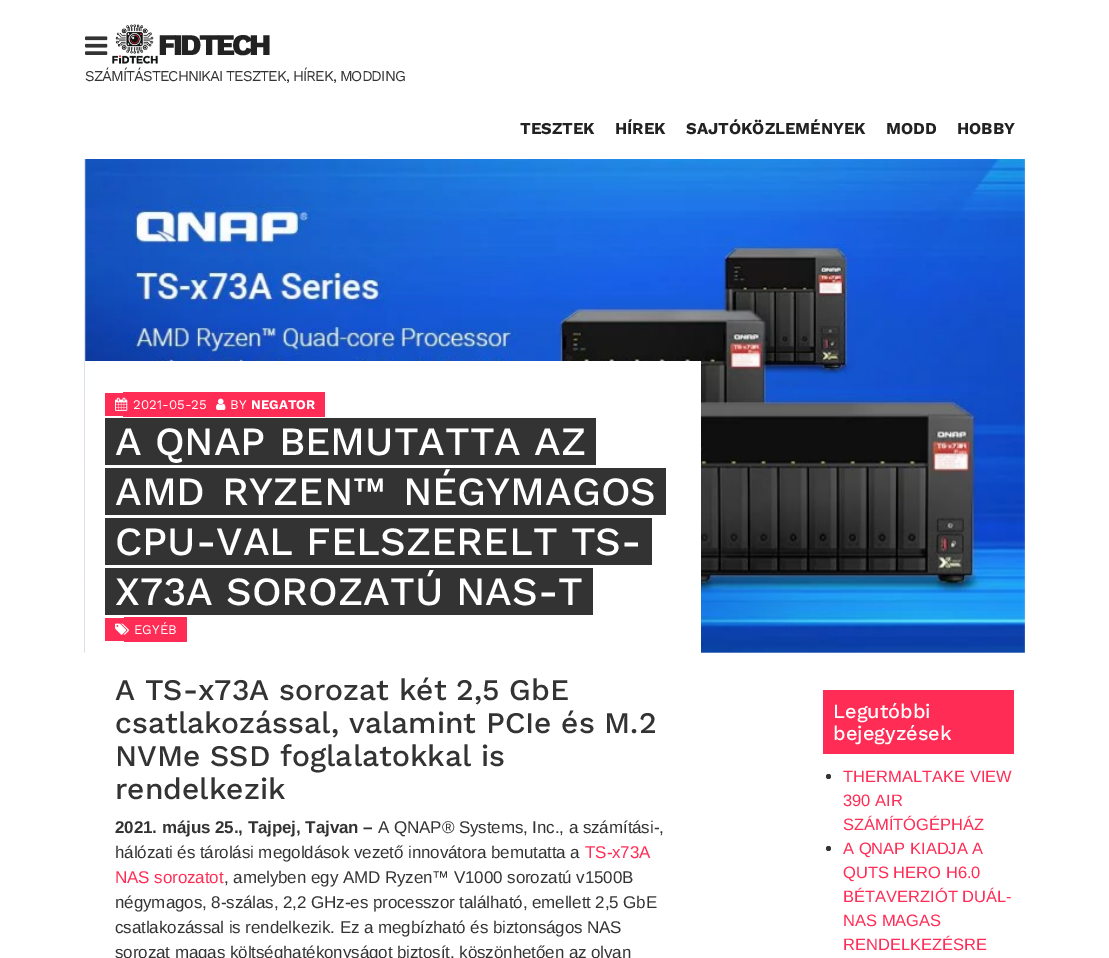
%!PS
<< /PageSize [1109 958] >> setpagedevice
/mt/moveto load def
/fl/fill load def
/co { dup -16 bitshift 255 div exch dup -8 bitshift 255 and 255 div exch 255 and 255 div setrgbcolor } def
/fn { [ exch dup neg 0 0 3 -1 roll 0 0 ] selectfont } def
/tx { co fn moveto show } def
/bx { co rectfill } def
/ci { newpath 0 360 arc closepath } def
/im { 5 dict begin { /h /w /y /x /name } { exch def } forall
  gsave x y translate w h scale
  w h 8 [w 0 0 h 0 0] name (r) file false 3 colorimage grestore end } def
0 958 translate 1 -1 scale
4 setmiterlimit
0 0 1109 958 16#FFFFFF bx
(media/1.raw) 85 36 23 19 im
(media/2.raw) 112 24 46 40 im
(media/3.raw) 84 159 941 494 im
85 361 616 292 16#FFFFFF bx
105 393 18 23 16#FF2D55 bx
123 392 10 25 16#FF2D55 bx
133 392 118 25 16#FF2D55 bx
251 392 74 25 16#FF2D55 bx
(media/4.raw) 115 397 13 14 im
(media/5.raw) 216 398 10 12 im
105 418 10 47 16#333333 bx
115 418 481 47 16#333333 bx
105 468 10 47 16#333333 bx
115 468 551 47 16#333333 bx
105 518 10 47 16#333333 bx
115 518 537 47 16#333333 bx
105 568 10 47 16#333333 bx
115 568 478 47 16#333333 bx
105 618 19 23 16#FF2D55 bx
124 617 10 25 16#FF2D55 bx
134 617 53 25 16#FF2D55 bx
(media/6.raw) 115 623 14 12 im
823 690 191 64 16#FF2D55 bx
16#333333 co
828.5 776.5 2.5 ci fl
828.5 848.5 2.5 ci fl
/WorkSans-ExtraBold 30 fn
16#222222 co
158 55 mt -3 0 (FIDTECH) ashow
/WorkSans-Regular 15 fn
16#333333 co
85 81 mt -1 0 (SZÁMÍTÁSTECHNIKAI TESZTEK, HÍREK, MODDING) ashow
(TESZTEK) 520 134 /WorkSans-Bold 16.5 16#222222 tx
(HÍREK) 615 134 /WorkSans-Bold 16.5 16#222222 tx
(SAJTÓKÖZLEMÉNYEK) 686 134 /WorkSans-Bold 16.5 16#222222 tx
(MODD) 886 134 /WorkSans-Bold 16.5 16#222222 tx
(HOBBY) 957 134 /WorkSans-Bold 16.5 16#222222 tx
(2021-05-25) 133 409 /WorkSans-Regular 13.25 16#FFFFFF tx
(BY) 230 409 /WorkSans-Regular 13.25 16#FFFFFF tx
(NEGATOR) 251 409 /WorkSans-Bold 13.25 16#FFFFFF tx
(A QNAP BEMUTATTA AZ) 115 455 /WorkSans-Medium 40 16#FFFFFF tx
115 505 mt 4 0 32 (AMD RYZEN™ NÉGYMAGOS) widthshow
(CPU-VAL FELSZERELT TS-) 115 555 /WorkSans-Medium 40 16#FFFFFF tx
(X73A SOROZATÚ NAS-T) 115 605 /WorkSans-Medium 40 16#FFFFFF tx
(EGYÉB) 134 634 /WorkSans-Regular 13.25 16#FFFFFF tx
(A TS-x73A sorozat két 2,5 GbE) 115 700 /WorkSans-Medium 30 16#333333 tx
(csatlakozással, valamint PCIe és M.2) 115 733 /WorkSans-Medium 30 16#333333 tx
(NVMe SSD foglalatokkal is) 115 766 /WorkSans-Medium 30 16#333333 tx
(rendelkezik) 115 799 /WorkSans-Medium 30 16#333333 tx
/LiberationSans-Bold 17 fn
115 833 mt -.1 0 (2021. május 25., Tajpej, Tajvan –) ashow
/LiberationSans-Regular 17 fn
378 833 mt -.1 0 (A QNAP® Systems, Inc., a számítási-,) ashow
115 858 mt -.1 0 (hálózati és tárolási megoldások vezető innovátora bemutatta a) ashow
16#FF2D55 co
585 858 mt -.1 0 (TS-x73A) ashow
115 883 mt -.1 0 (NAS sorozatot) ashow
16#333333 co
224 883 mt -.1 0 (, amelyben egy AMD Ryzen™ V1000 sorozatú v1500B) ashow
115 908 mt -.1 0 (négymagos, 8-szálas, 2,2 GHz-es processzor található, emellett 2,5 GbE) ashow
115 933 mt -.1 0 (csatlakozással is rendelkezik. Ez a megbízható és biztonságos NAS) ashow
115 958 mt -.1 0 (sorozat magas költséghatékonyságot biztosít, köszönhetően az olyan) ashow
(Legutóbbi) 833 718 /WorkSans-Medium 20 16#FFFFFF tx
(bejegyzések) 833 740 /WorkSans-Medium 20 16#FFFFFF tx
(THERMALTAKE VIEW) 843 782 /LiberationSans-Regular 16.5 16#FF2D55 tx
(390 AIR) 843 806 /LiberationSans-Regular 16.5 16#FF2D55 tx
(SZÁMÍTÓGÉPHÁZ) 843 830 /LiberationSans-Regular 16.5 16#FF2D55 tx
(A QNAP KIADJA A) 843 854 /LiberationSans-Regular 16.5 16#FF2D55 tx
(QUTS HERO H6.0) 843 878 /LiberationSans-Regular 16.5 16#FF2D55 tx
(BÉTAVERZIÓT DUÁL-) 843 902 /LiberationSans-Regular 16.5 16#FF2D55 tx
(NAS MAGAS) 843 926 /LiberationSans-Regular 16.5 16#FF2D55 tx
(RENDELKEZÉSRE) 843 950 /LiberationSans-Regular 16.5 16#FF2D55 tx
showpage
